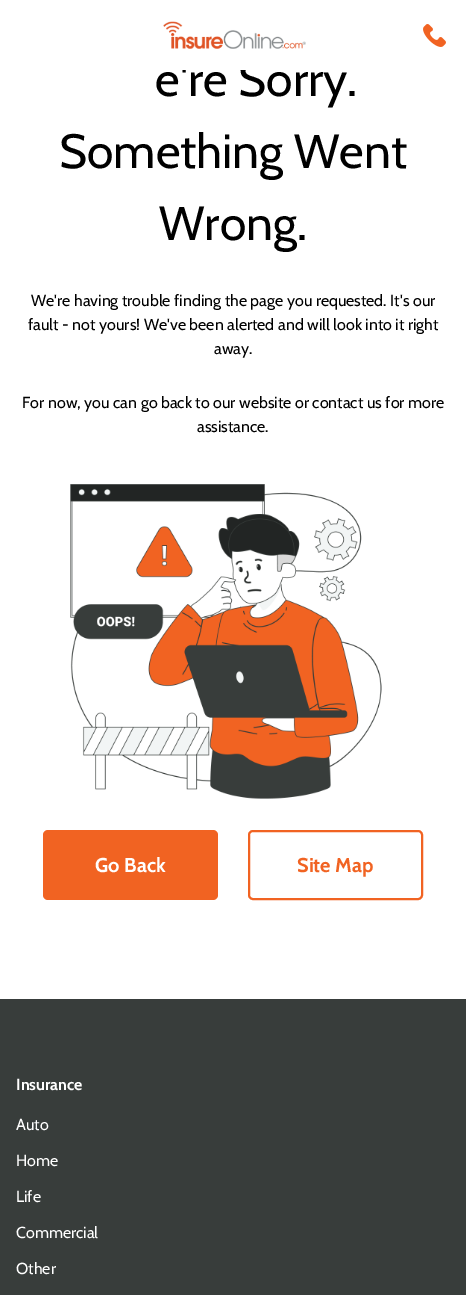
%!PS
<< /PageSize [466 1295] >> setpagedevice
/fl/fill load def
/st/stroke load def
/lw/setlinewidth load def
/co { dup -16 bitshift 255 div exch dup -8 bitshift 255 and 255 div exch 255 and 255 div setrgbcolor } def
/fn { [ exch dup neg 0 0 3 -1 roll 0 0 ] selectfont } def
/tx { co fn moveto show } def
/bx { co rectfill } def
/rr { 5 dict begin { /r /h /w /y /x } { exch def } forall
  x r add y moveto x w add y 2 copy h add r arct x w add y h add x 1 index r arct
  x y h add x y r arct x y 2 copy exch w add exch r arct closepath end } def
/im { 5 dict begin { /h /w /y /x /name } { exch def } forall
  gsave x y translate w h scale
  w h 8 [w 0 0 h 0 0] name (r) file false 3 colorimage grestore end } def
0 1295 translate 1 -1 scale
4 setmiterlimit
0 0 466 1295 16#FFFFFF bx
(media/1.raw) 163 21 143 28 im
(media/2.raw) 423 24 23 23 im
(media/3.raw) 70 484 312 315 im
16#F16322 co
43 830 175 70 5 rr fl
2 lw
249 831 173 68 4 rr st
0 999 466 296 16#383D3B bx
(e're Sorry.) 155 96 /Cabin-Regular 48 16#000000 tx
180 61 84 9 16#FFFFFF bx
(Something Went) 59 168 /Cabin-Regular 48 16#000000 tx
(Wrong.) 159 240 /Cabin-Regular 48 16#000000 tx
(We're having trouble finding the page you requested. It's our) 31 306 /Cabin-Regular 16 16#000000 tx
(fault - not yours! We've been alerted and will look into it right) 28 330 /Cabin-Regular 16 16#000000 tx
(away.) 214 354 /Cabin-Regular 16 16#000000 tx
(For now, you can go back to our website or contact us for more) 22 408 /Cabin-Regular 16 16#000000 tx
(assistance.) 197 432 /Cabin-Regular 16 16#000000 tx
(Go Back) 95 872 /Cabin-Bold 20 16#FFFFFF tx
(Site Map) 297 872 /Cabin-Bold 20 16#F16322 tx
(Insurance) 16 1090 /Cabin-Bold 16 16#FFFFFF tx
(Auto) 16 1130 /Cabin-Regular 16 16#FFFFFF tx
(Home) 16 1166 /Cabin-Regular 16 16#FFFFFF tx
(Life) 16 1202 /Cabin-Regular 16 16#FFFFFF tx
(Commercial) 16 1238 /Cabin-Regular 16 16#FFFFFF tx
(Other) 16 1274 /Cabin-Regular 16 16#FFFFFF tx
showpage
